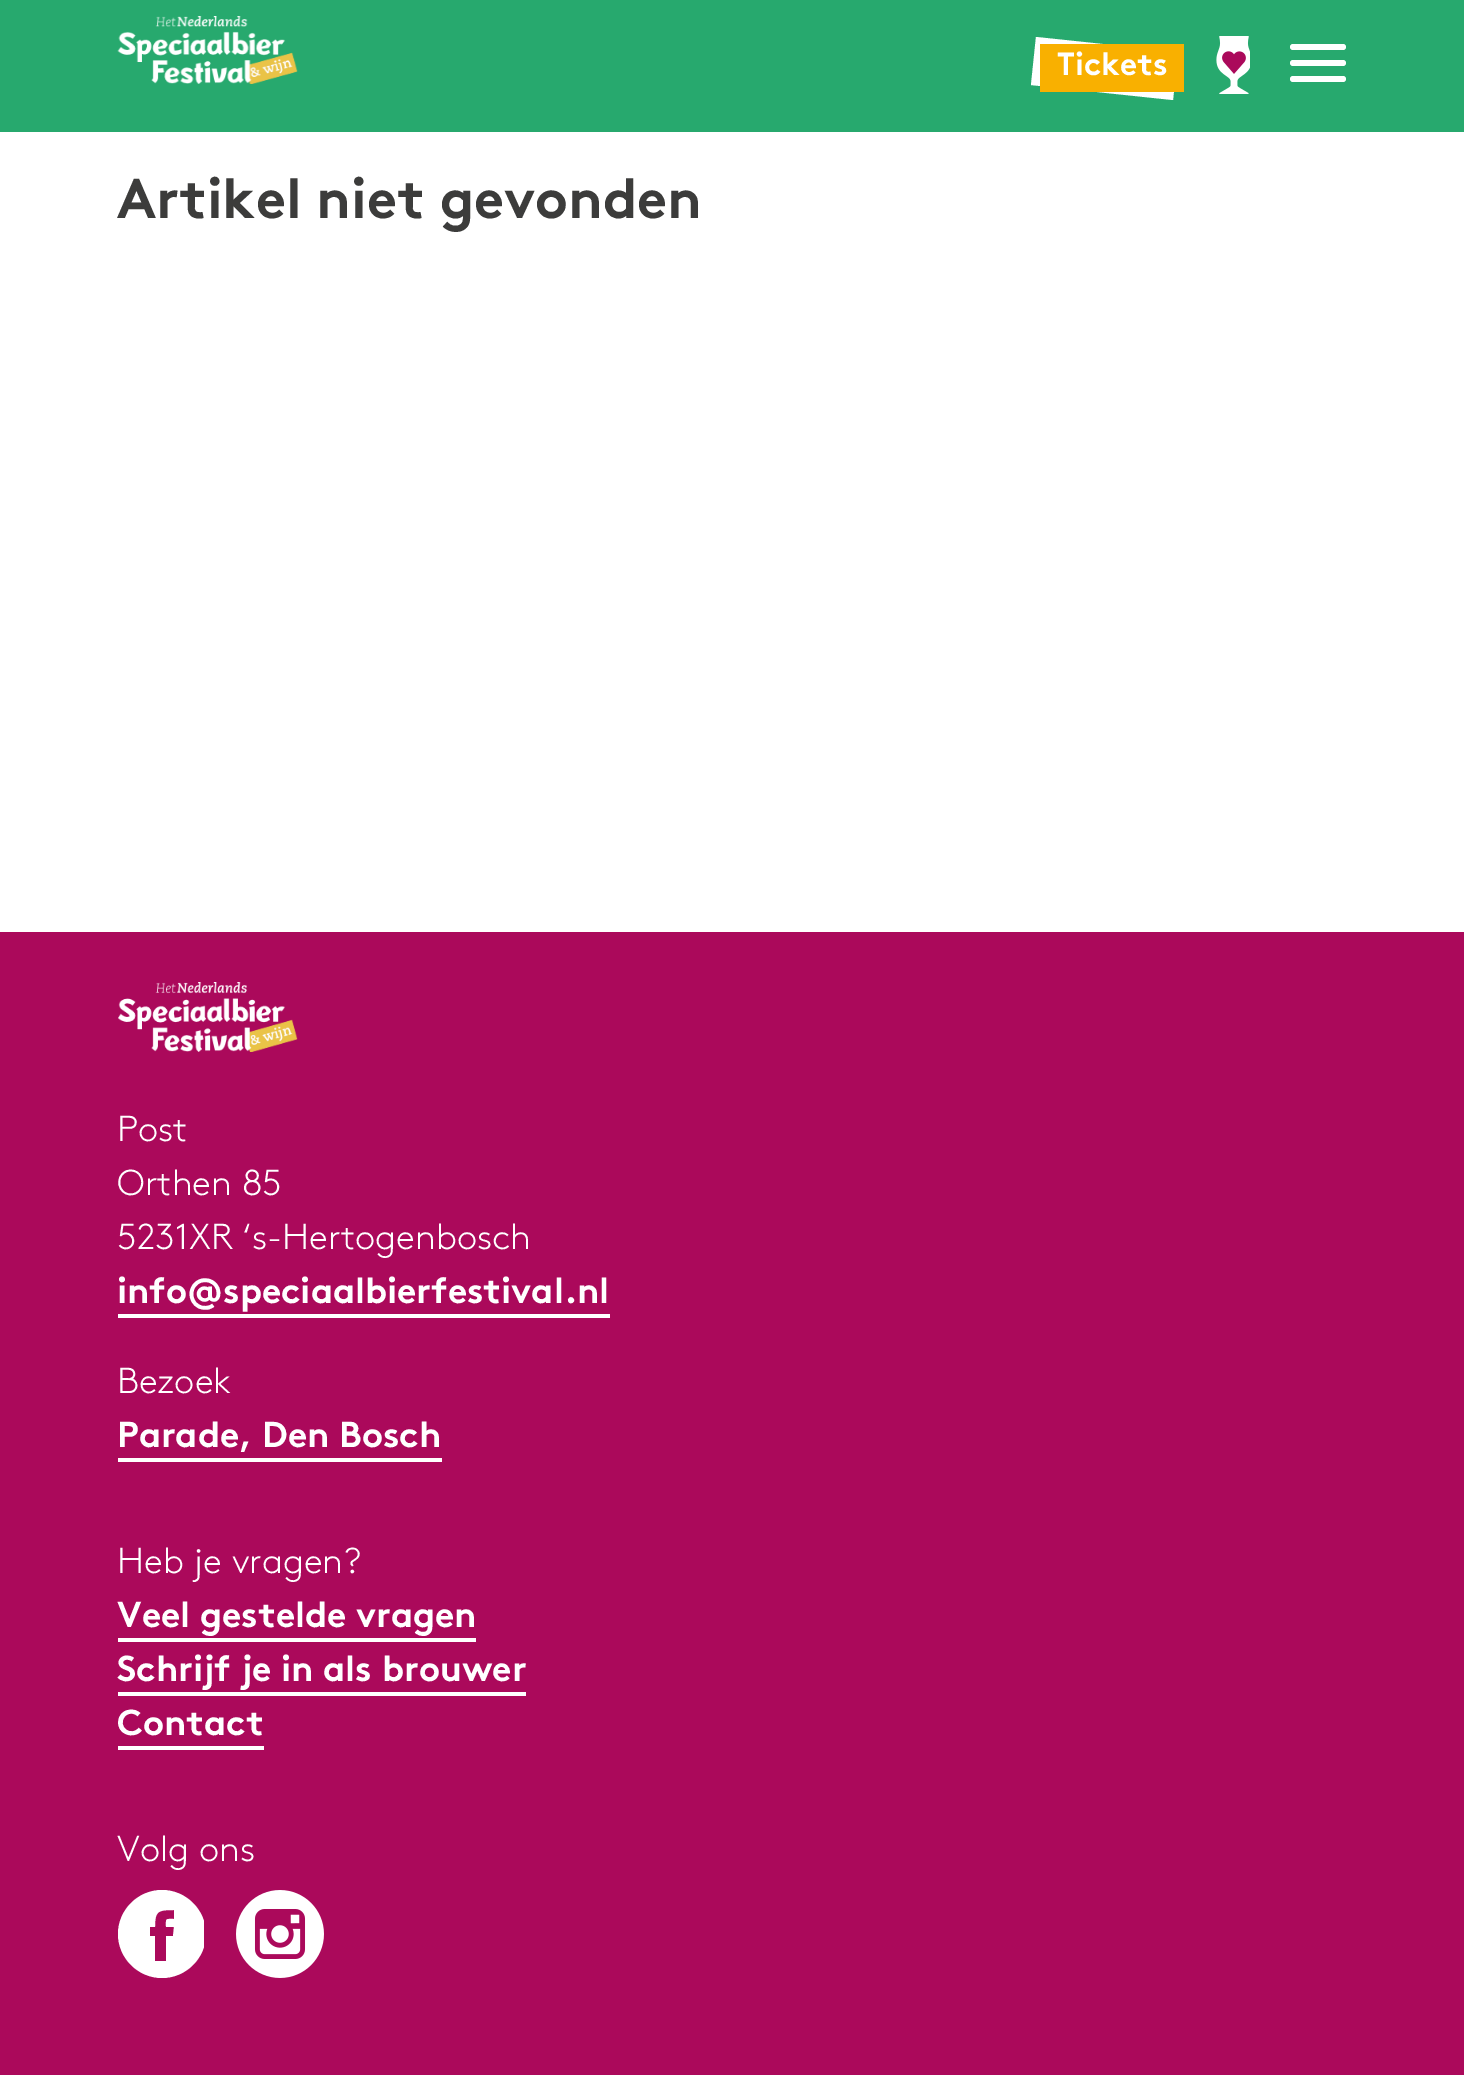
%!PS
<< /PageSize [1464 2075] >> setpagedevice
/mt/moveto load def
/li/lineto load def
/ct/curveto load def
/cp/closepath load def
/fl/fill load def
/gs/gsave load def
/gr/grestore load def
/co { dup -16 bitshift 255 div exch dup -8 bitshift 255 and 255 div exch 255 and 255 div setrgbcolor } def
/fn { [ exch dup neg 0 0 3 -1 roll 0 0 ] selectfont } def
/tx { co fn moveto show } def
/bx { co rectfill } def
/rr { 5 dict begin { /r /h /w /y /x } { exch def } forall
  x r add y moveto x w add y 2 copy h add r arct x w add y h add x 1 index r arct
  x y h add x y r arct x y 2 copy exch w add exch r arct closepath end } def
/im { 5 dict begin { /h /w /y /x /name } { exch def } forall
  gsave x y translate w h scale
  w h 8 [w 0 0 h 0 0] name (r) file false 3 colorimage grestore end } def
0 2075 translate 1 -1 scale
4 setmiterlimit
0 0 1464 2075 16#FFFFFF bx
0 0 1464 132 16#27A96E bx
(media/1.raw) 117 16 181 68 im
16#FFFFFF co
1036 37 mt 1178 52 li 1173 100 li 1031 85 li cp fl
1040 44 144 48 16#F9B000 bx
(media/2.raw) 1216 36 34 58 im
16#FFFFFF co
1290 44 56 6 3 rr fl
1290 60 56 6 3 rr fl
1290 76 56 6 3 rr fl
0 932 1464 1143 16#AB095B bx
(media/3.raw) 118 982 180 70 im
118 1314 492 4 16#FFFFFF bx
118 1458 324 4 16#FFFFFF bx
118 1638 358 4 16#FFFFFF bx
118 1692 408 4 16#FFFFFF bx
118 1746 146 4 16#FFFFFF bx
gs
118 1890 86 88 rectclip
162 1890 mt 138 1890 118 1910 118 1934 ct 118 1958 138 1978 162 1978 ct 186 1978 206 1958 206 1934 ct 206 1910 186 1890 162 1890 ct cp 173 1936 mt 166 1936 li 166 1961 li 155 1961 li 155 1936 li 150 1936 li 150 1927 li 155 1927 li 155 1911 158 1910 174 1910 ct 174 1919 li 165 1919 166 1918 166 1927 ct 174 1927 li cp fl
gr
(media/4.raw) 236 1890 88 88 im
(Tickets) 1057 75 /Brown-Bold 32 16#FFFFFF tx
(Artikel niet gevonden) 117 218 /Brown-Bold 56 16#3C3C3B tx
(Post) 117 1141 /Brown-Light 36 16#FFFFFF tx
(Orthen 85) 117 1195 /Brown-Light 36 16#FFFFFF tx
(5231XR ‘s-Hertogenbosch) 117 1249 /Brown-Light 36 16#FFFFFF tx
(info@speciaalbierfestival.nl) 117 1303 /Brown-Bold 36 16#FFFFFF tx
(Bezoek) 117 1393 /Brown-Light 36 16#FFFFFF tx
(Parade, Den Bosch) 117 1447 /Brown-Bold 36 16#FFFFFF tx
(Heb je vragen?) 117 1573 /Brown-Light 36 16#FFFFFF tx
(Veel gestelde vragen) 117 1627 /Brown-Bold 36 16#FFFFFF tx
(Schrijf je in als brouwer) 117 1681 /Brown-Bold 36 16#FFFFFF tx
(Contact) 117 1735 /Brown-Bold 36 16#FFFFFF tx
(Volg ons) 117 1861 /Brown-Light 36 16#FFFFFF tx
showpage
